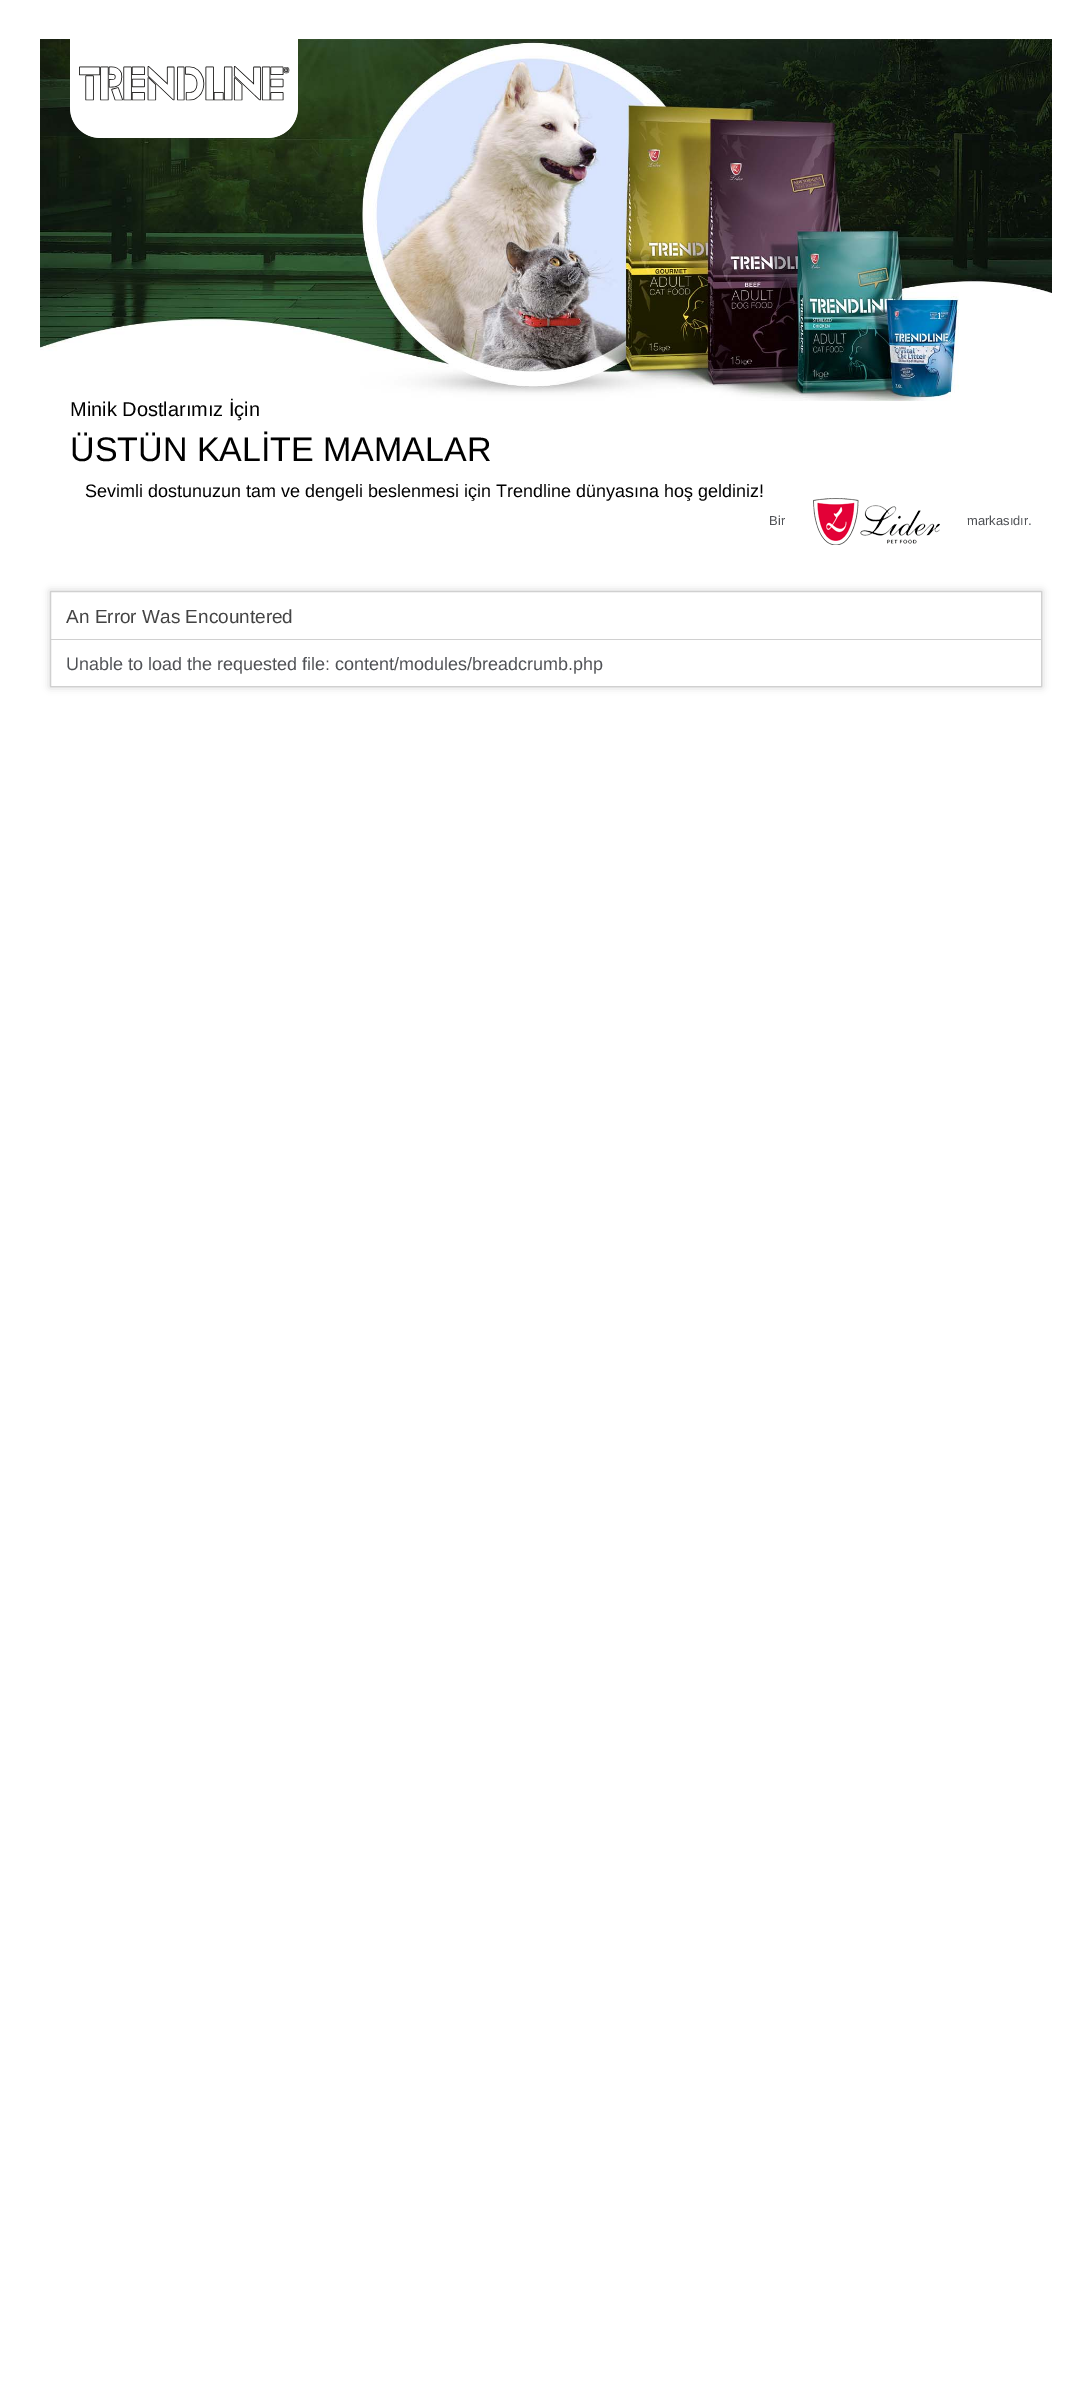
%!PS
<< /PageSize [1092 2407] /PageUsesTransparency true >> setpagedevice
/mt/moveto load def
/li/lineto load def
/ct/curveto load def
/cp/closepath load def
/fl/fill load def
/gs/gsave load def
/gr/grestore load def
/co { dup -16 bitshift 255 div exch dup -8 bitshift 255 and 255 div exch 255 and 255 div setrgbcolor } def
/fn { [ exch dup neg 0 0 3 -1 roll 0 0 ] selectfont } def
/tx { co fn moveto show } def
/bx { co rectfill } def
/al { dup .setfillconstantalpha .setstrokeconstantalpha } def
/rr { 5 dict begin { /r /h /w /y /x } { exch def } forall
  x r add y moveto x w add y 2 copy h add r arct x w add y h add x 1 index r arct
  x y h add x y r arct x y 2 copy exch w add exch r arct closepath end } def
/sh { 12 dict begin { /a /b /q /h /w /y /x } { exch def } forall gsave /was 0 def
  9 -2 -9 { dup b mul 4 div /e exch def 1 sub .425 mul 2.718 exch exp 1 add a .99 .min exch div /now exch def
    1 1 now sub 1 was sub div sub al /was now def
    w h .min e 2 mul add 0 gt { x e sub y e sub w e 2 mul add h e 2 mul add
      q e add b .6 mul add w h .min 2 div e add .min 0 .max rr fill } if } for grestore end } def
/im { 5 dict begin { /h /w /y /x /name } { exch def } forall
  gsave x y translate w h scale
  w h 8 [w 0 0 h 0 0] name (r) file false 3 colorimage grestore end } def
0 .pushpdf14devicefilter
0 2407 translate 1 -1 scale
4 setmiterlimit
0 0 1092 2407 16#FFFFFF bx
(media/2.raw) 40 39 1012 362 im
70 28 mt 298 28 li 298 108 li 298 124.5 284.5 138 268 138 ct 100 138 li 83.5 138 70 124.5 70 108 ct cp fl
(media/1.raw) 70 66 228 72 im
(media/3.raw) 813 498 127 47 im
gs
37 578 mt 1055 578 li 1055 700 li 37 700 li cp 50 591 mt 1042 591 li 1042 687 li 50 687 li cp eoclip newpath
16#D0D0D0 co
50 591 992 96 0 4 1 sh
gr
16#D0D0D0 co
50.5 591.5 991 95 rectstroke
51 639 990 1 16#D0D0D0 bx
(Minik Dostlarımız İçin) 70 416 /LiberationSans-Regular 20 16#000000 tx
(ÜSTÜN KALİTE MAMALAR) 70 461 /LiberationSans-Regular 34 16#000000 tx
(Sevimli dostunuzun tam ve dengeli beslenmesi için Trendline dünyasına hoş geldiniz!) 85 497 /LiberationSans-Regular 18 16#000000 tx
(Bir) 769 525 /LiberationSans-Regular 13 16#4F5155 tx
(markasıdır.) 967 525 /LiberationSans-Regular 13 16#4F5155 tx
(An Error Was Encountered) 66 623 /LiberationSans-Regular 19 16#444444 tx
(Unable to load the requested file: content/modules/breadcrumb.php) 66 670 /LiberationSans-Regular 18 16#4F5155 tx
.poppdf14devicefilter showpage
